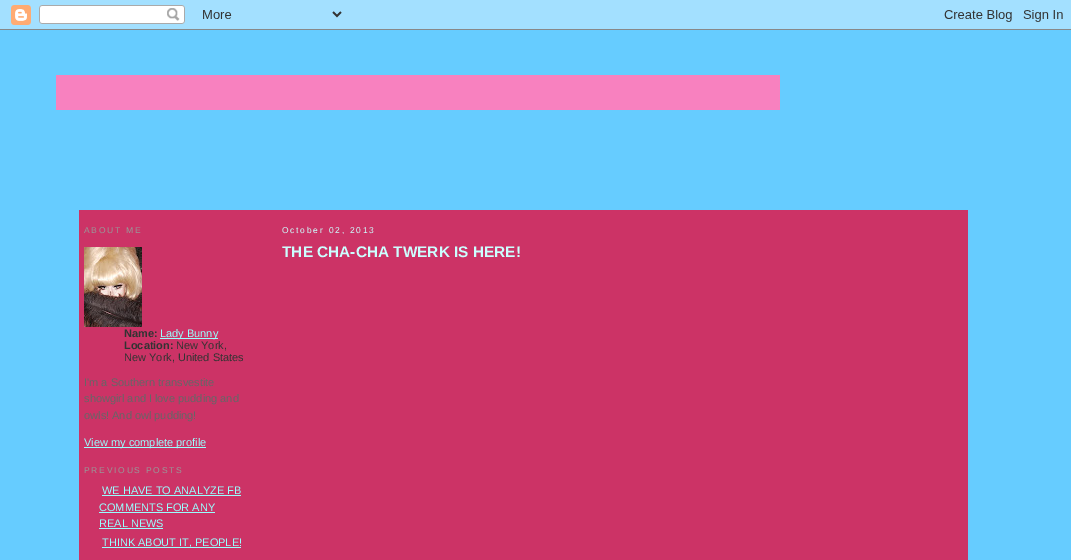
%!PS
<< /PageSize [1071 560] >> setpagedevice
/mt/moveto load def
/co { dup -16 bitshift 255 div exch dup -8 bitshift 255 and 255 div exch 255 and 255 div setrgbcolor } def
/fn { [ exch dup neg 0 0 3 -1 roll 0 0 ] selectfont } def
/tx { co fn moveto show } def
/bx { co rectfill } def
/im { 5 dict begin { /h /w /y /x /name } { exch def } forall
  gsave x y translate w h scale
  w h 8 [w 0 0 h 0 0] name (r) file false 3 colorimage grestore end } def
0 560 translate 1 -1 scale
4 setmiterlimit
0 0 1071 560 16#66CCFF bx
(media/1.raw) 0 0 1071 30 im
56 75 724 35 16#F881BF bx
79 210 889 350 16#CC3366 bx
(media/2.raw) 84 247 58 80 im
160 338 58 1 16#99FFFF bx
84 447 122 1 16#99FFFF bx
102 495 139 1 16#99FFFF bx
99 512 116 1 16#99FFFF bx
99 528 64 1 16#99FFFF bx
102 547 139 1 16#99FFFF bx
/LiberationSans-Regular 8.5 fn
16#999999 co
84 233 mt 1.75 0 (ABOUT ME) ashow
(Name:) 124 337 /LiberationSans-Bold 11 16#333333 tx
(Lady Bunny) 160 337 /LiberationSans-Regular 11 16#99FFFF tx
(Location:) 124 349 /LiberationSans-Bold 11 16#333333 tx
(New York,) 176 349 /LiberationSans-Regular 11 16#333333 tx
(New York, United States) 124 361 /LiberationSans-Regular 11 16#333333 tx
(I'm a Southern transvestite) 84 386 /LiberationSans-Regular 11 16#666666 tx
(showgirl and I love pudding and) 84 402 /LiberationSans-Regular 11 16#666666 tx
(owls! And owl pudding!) 84 419 /LiberationSans-Regular 11 16#666666 tx
(View my complete profile) 84 446 /LiberationSans-Regular 11 16#99FFFF tx
/LiberationSans-Regular 8.5 fn
16#999999 co
84 473 mt 1.75 0 (PREVIOUS POSTS) ashow
(WE HAVE TO ANALYZE FB) 102 494 /LiberationSans-Regular 11 16#99FFFF tx
(COMMENTS FOR ANY) 99 511 /LiberationSans-Regular 11 16#99FFFF tx
(REAL NEWS) 99 527 /LiberationSans-Regular 11 16#99FFFF tx
(THINK ABOUT IT, PEOPLE!) 102 546 /LiberationSans-Regular 11 16#99FFFF tx
/LiberationSans-Regular 8.5 fn
16#CCFFFF co
282 233 mt 1.75 0 (October 02, 2013) ashow
(THE CHA-CHA TWERK IS HERE!) 282 257 /LiberationSans-Bold 15.4 16#CCFFFF tx
showpage
